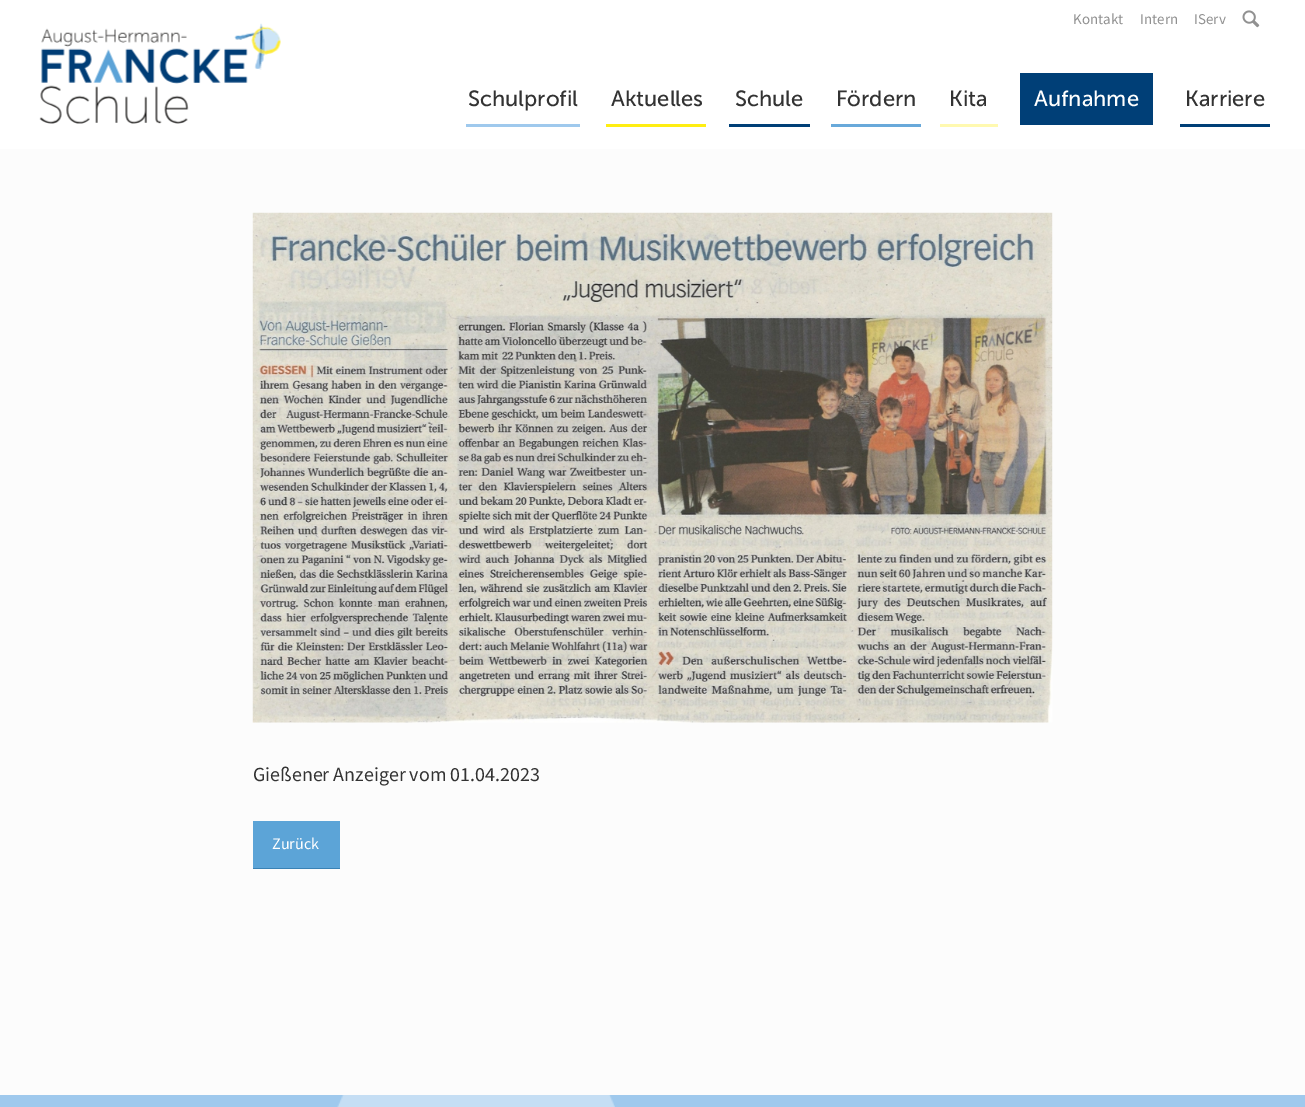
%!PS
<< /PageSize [1305 1107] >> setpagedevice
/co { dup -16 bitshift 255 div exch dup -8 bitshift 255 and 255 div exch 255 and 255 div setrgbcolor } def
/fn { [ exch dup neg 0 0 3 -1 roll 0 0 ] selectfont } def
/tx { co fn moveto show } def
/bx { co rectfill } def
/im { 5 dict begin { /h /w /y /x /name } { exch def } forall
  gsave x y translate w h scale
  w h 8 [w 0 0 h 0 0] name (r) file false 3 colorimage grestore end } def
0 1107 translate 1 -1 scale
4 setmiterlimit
0 0 1305 1107 16#FFFFFF bx
(media/1.raw) 1242 10 18 18 im
(media/2.raw) 39 23 242 101 im
466 124 114 3 16#9FC9ED bx
606 124 100 3 16#FFEE12 bx
729 124 81 3 16#003F77 bx
831 124 90 3 16#68A9DA bx
940 124 58 3 16#FFF9B0 bx
1020 73 133 52 16#003F77 bx
1180 124 90 3 16#003F77 bx
0 149 1305 946 16#FCFCFC bx
(media/3.raw) 252 212 801 511 im
253 821 87 47 16#5CA4D7 bx
253 868 87 1 16#3A82B5 bx
0 1095 1305 12 16#9FC9ED bx
(media/4.raw) 337 1095 278 12 im
(Kontakt) 1073 24 /SourceSansPro-Regular 15 16#919191 tx
(Intern) 1140 24 /SourceSansPro-Regular 15 16#919191 tx
(IServ) 1194 24 /SourceSansPro-Regular 15 16#919191 tx
(Schulprofil) 468 106 /MuseoSans-Regular 22 16#333333 tx
(Aktuelles) 611 106 /MuseoSans-Regular 22 16#333333 tx
(Schule) 735 106 /MuseoSans-Regular 22 16#333333 tx
(Fördern) 836 106 /MuseoSans-Regular 22 16#333333 tx
(Kita) 949 106 /MuseoSans-Regular 22 16#333333 tx
(Aufnahme) 1034 106 /MuseoSans-Regular 22 16#FFFFFF tx
(Karriere) 1185 106 /MuseoSans-Regular 22 16#333333 tx
(Gießener Anzeiger vom 01.04.2023) 253 781 /SourceSansPro-Regular 20 16#333333 tx
(Zurück) 272 849 /SourceSansPro-Regular 16 16#FFFFFF tx
showpage
